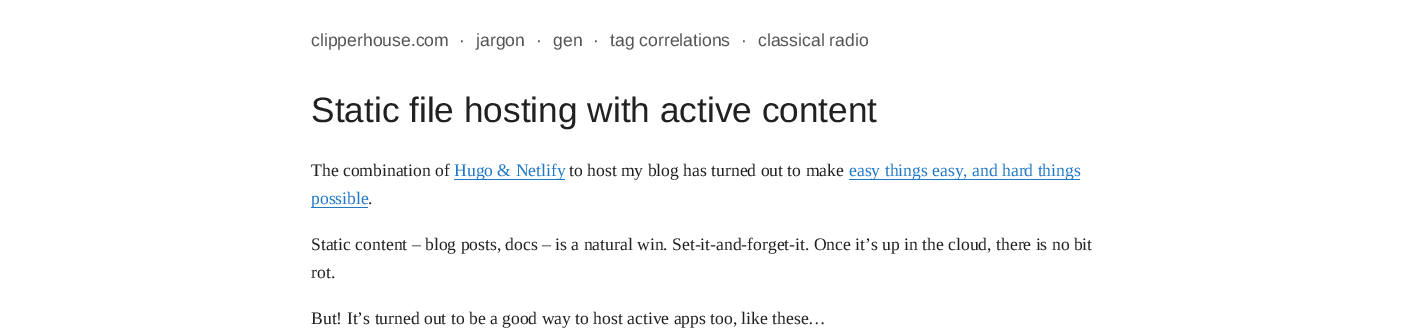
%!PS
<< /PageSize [1421 328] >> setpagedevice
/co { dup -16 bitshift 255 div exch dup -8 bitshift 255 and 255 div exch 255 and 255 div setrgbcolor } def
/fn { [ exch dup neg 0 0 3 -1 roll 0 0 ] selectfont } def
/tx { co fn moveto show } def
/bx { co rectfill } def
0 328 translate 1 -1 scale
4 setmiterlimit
0 0 1421 328 16#FFFFFF bx
454 179 111 1 16#2079C7 bx
849 179 231 1 16#2079C7 bx
311 207 57 1 16#2079C7 bx
(clipperhouse.com) 311 46 /LiberationSans-Regular 17.6 16#555555 tx
(·) 459 46 /LiberationSans-Regular 17.6 16#555555 tx
(jargon) 476 46 /LiberationSans-Regular 17.6 16#555555 tx
(·) 536 46 /LiberationSans-Regular 17.6 16#555555 tx
(gen) 553 46 /LiberationSans-Regular 17.6 16#555555 tx
(·) 593 46 /LiberationSans-Regular 17.6 16#555555 tx
(tag correlations) 610 46 /LiberationSans-Regular 17.6 16#555555 tx
(·) 741 46 /LiberationSans-Regular 17.6 16#555555 tx
(classical radio) 758 46 /LiberationSans-Regular 17.6 16#555555 tx
(Static file hosting with active content) 311 122 /LiberationSans-Regular 35.25 16#212121 tx
(The combination of) 311 176 /LiberationSerif-Regular 17.6 16#212121 tx
(Hugo & Netlify) 454 176 /LiberationSerif-Regular 17.6 16#2079C7 tx
(to host my blog has turned out to make) 569 176 /LiberationSerif-Regular 17.6 16#212121 tx
(easy things easy, and hard things) 849 176 /LiberationSerif-Regular 17.6 16#2079C7 tx
(possible) 311 204 /LiberationSerif-Regular 17.6 16#2079C7 tx
(.) 368 204 /LiberationSerif-Regular 17.6 16#212121 tx
(Static content – blog posts, docs – is a natural win. Set-it-and-forget-it. Once it’s up in the cloud, there is no bit) 311 250 /LiberationSerif-Regular 17.6 16#212121 tx
(rot.) 311 278 /LiberationSerif-Regular 17.6 16#212121 tx
(But! It’s turned out to be a good way to host active apps too, like these…) 311 324 /LiberationSerif-Regular 17.6 16#212121 tx
showpage
